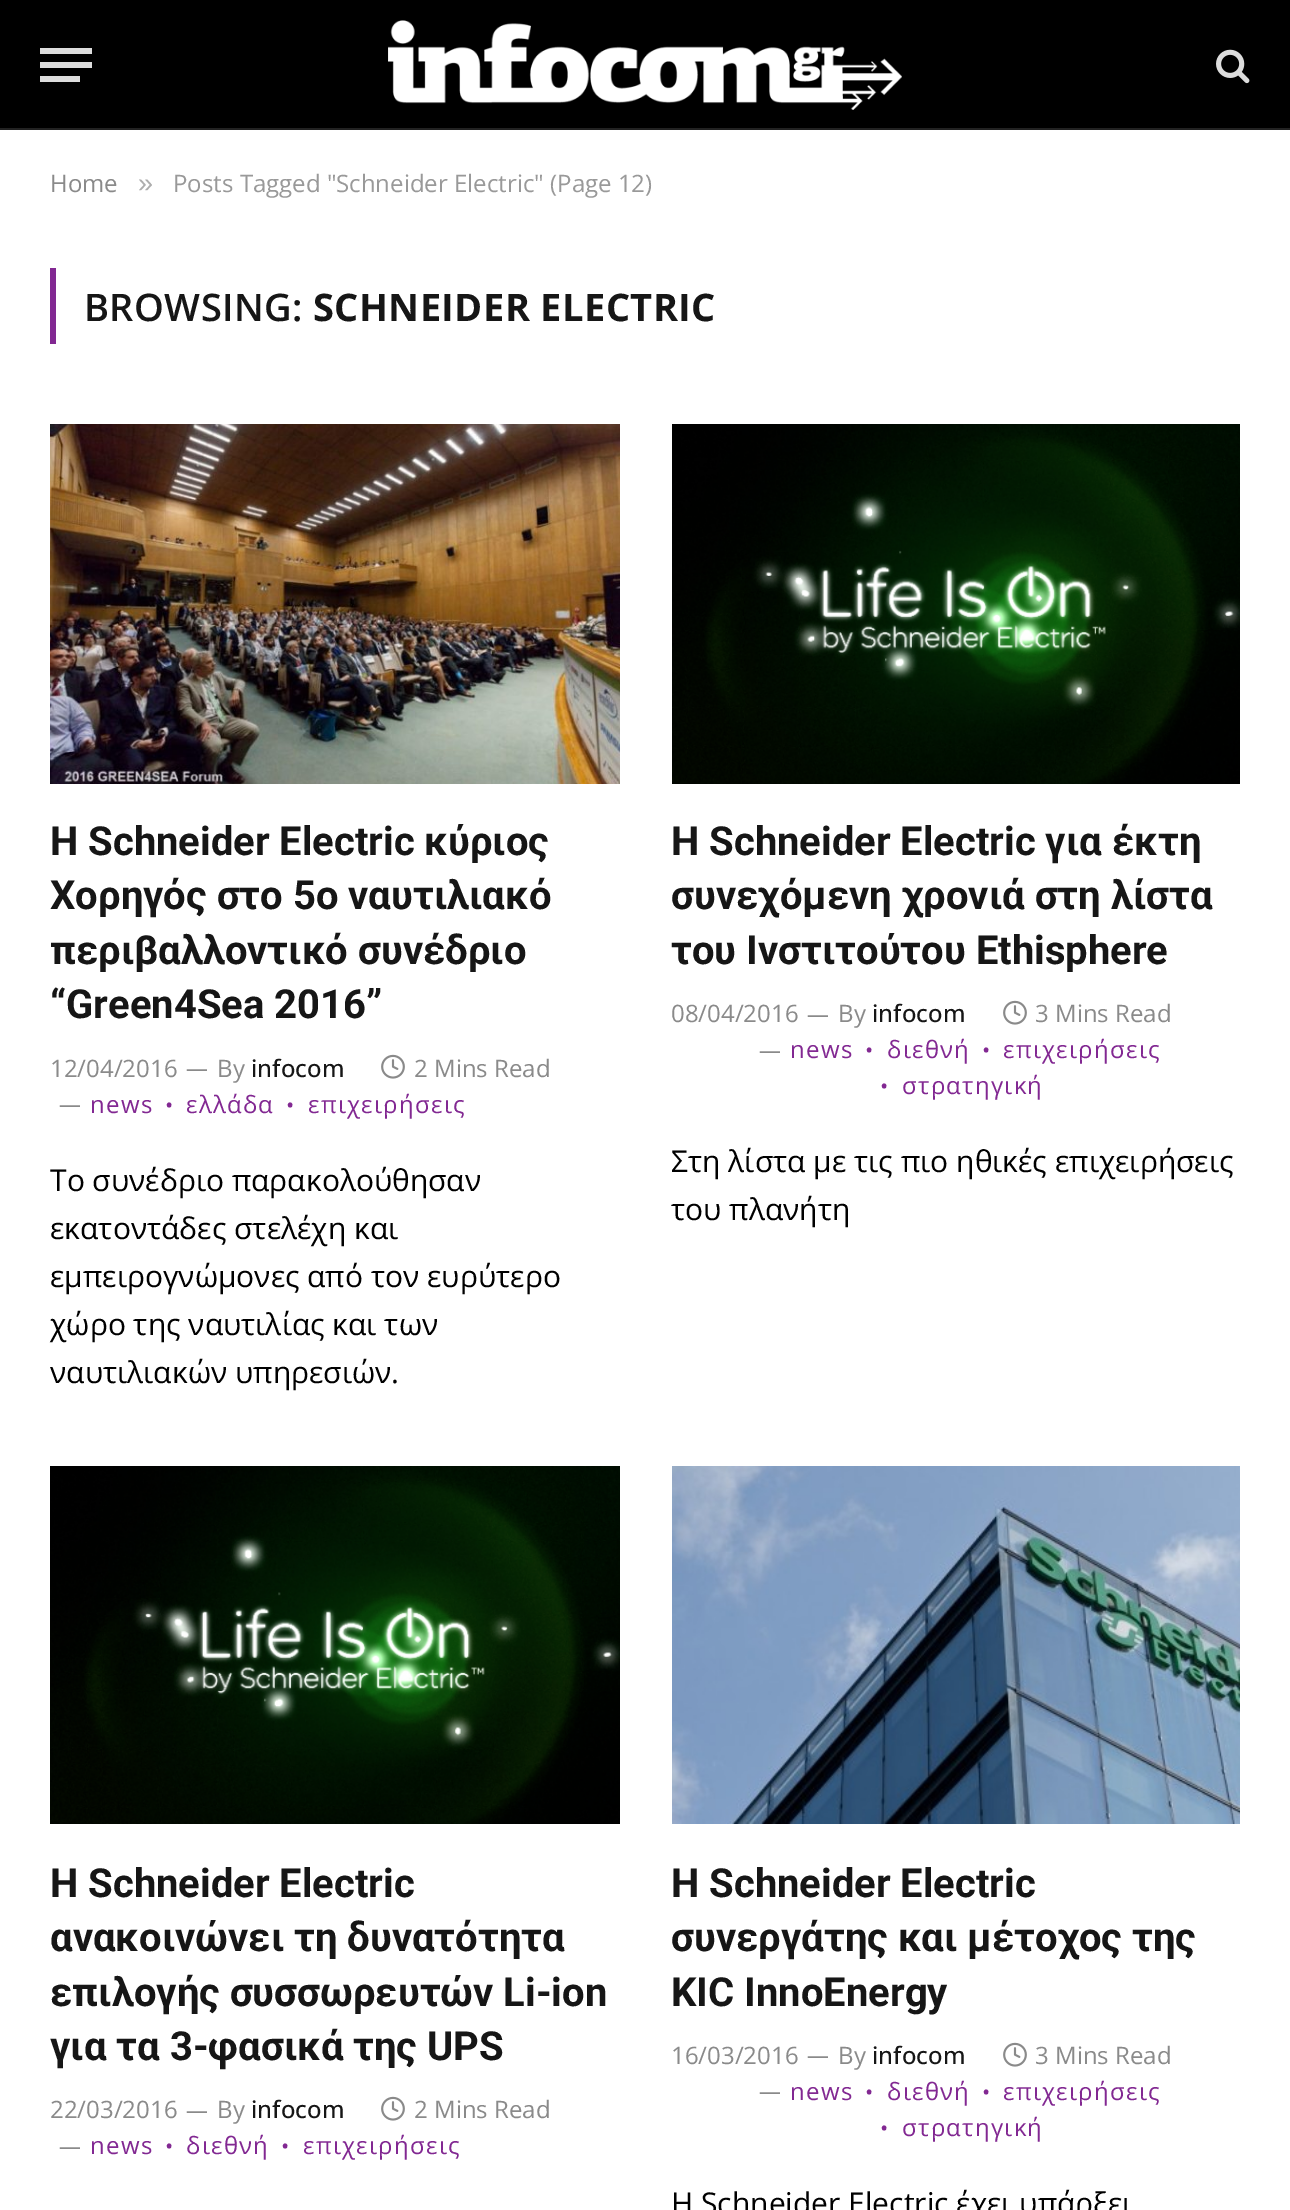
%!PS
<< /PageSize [1290 2210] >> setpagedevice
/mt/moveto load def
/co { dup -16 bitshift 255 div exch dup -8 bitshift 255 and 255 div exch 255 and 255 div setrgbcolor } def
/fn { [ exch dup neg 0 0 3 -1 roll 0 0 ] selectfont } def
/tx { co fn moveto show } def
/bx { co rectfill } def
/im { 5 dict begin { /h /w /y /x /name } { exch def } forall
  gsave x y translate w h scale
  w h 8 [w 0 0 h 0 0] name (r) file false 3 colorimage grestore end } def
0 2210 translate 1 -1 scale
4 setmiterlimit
0 0 1290 2210 16#FFFFFF bx
0 0 1290 128 16#000000 bx
0 128 1290 2 16#222222 bx
40 76 40 6 16#DDDDDD bx
40 48 52 6 16#DDDDDD bx
40 62 52 6 16#DDDDDD bx
(media/1.raw) 388 20 514 90 im
(media/2.raw) 1216 49 34 35 im
50 268 6 76 16#822892 bx
(media/3.raw) 50 424 570 360 im
(media/4.raw) 381 1054 24 25 im
(media/5.raw) 672 424 568 360 im
(media/4.raw) 1003 1000 24 25 im
(media/6.raw) 50 1466 570 358 im
(media/4.raw) 381 2096 24 25 im
(media/7.raw) 672 1466 568 358 im
(media/4.raw) 1003 2042 24 25 im
(Home) 50 192 /OpenSans-Regular 24 16#8A8A8A tx
(») 138 192 /LiberationSans-Regular 27 16#ADADAD tx
(Posts Tagged "Schneider Electric" \(Page 12\)) 173 192 /OpenSans-Regular 24 16#999999 tx
/OpenSans-SemiBold 38 fn
16#161616 co
84 321 mt .4 0 (BROWSING:) ashow
/OpenSans-Bold 38 fn
313 321 mt .4 0 (SCHNEIDER ELECTRIC) ashow
(Η Schneider Electric κύριος) 50 855 /Roboto-Bold 40 16#161616 tx
(Χορηγός στο 5ο ναυτιλιακό) 50 909 /Roboto-Bold 40 16#161616 tx
(περιβαλλοντικό συνέδριο) 50 964 /Roboto-Bold 40 16#161616 tx
(“Green4Sea 2016”) 50 1018 /Roboto-Bold 40 16#161616 tx
(12/04/2016) 50 1077 /OpenSans-Regular 24 16#8A8A8A tx
(—) 186 1076 /OpenSans-Regular 22 16#8A8A8A tx
(By) 217 1077 /OpenSans-Regular 24 16#8A8A8A tx
(infocom) 251 1077 /OpenSans-Medium 24 16#161616 tx
(2 Mins Read) 414 1077 /OpenSans-Regular 24 16#8A8A8A tx
(—) 59 1112 /OpenSans-Regular 22 16#8A8A8A tx
/OpenSans-Regular 24 fn
16#822892 co
90 1113 mt 1.25 0 (news) ashow
/OpenSans-Regular 22 fn
165 1113 mt 1.25 0 (•) ashow
/OpenSans-Regular 24 fn
186 1113 mt 1.25 0 (ελλάδα) ashow
/OpenSans-Regular 22 fn
286 1113 mt 1.25 0 (•) ashow
/OpenSans-Regular 24 fn
308 1113 mt 1.25 0 (επιχειρήσεις) ashow
(Το συνέδριο παρακολούθησαν) 50 1191 /OpenSans-Regular 30 16#000000 tx
(εκατοντάδες στελέχη και) 50 1239 /OpenSans-Regular 30 16#000000 tx
(εμπειρογνώμονες από τον ευρύτερο) 50 1287 /OpenSans-Regular 30 16#000000 tx
(χώρο της ναυτιλίας και των) 50 1335 /OpenSans-Regular 30 16#000000 tx
(ναυτιλιακών υπηρεσιών.) 50 1383 /OpenSans-Regular 30 16#000000 tx
(Η Schneider Electric για έκτη) 671 855 /Roboto-Bold 40 16#161616 tx
(συνεχόμενη χρονιά στη λίστα) 671 909 /Roboto-Bold 40 16#161616 tx
(του Ινστιτούτου Ethisphere) 671 964 /Roboto-Bold 40 16#161616 tx
(08/04/2016) 671 1022 /OpenSans-Regular 24 16#8A8A8A tx
(—) 807 1022 /OpenSans-Regular 22 16#8A8A8A tx
(By) 838 1022 /OpenSans-Regular 24 16#8A8A8A tx
(infocom) 872 1022 /OpenSans-Medium 24 16#161616 tx
(3 Mins Read) 1035 1022 /OpenSans-Regular 24 16#8A8A8A tx
(—) 759 1058 /OpenSans-Regular 22 16#8A8A8A tx
/OpenSans-Regular 24 fn
16#822892 co
790 1058 mt 1.25 0 (news) ashow
/OpenSans-Regular 22 fn
865 1058 mt 1.25 0 (•) ashow
/OpenSans-Regular 24 fn
887 1058 mt 1.25 0 (διεθνή) ashow
/OpenSans-Regular 22 fn
982 1058 mt 1.25 0 (•) ashow
/OpenSans-Regular 24 fn
1003 1058 mt 1.25 0 (επιχειρήσεις) ashow
/OpenSans-Regular 22 fn
880 1094 mt 1.25 0 (•) ashow
/OpenSans-Regular 24 fn
902 1094 mt 1.25 0 (στρατηγική) ashow
(Στη λίστα με τις πιο ηθικές επιχειρήσεις) 671 1172 /OpenSans-Regular 30 16#000000 tx
(του πλανήτη) 671 1220 /OpenSans-Regular 30 16#000000 tx
(Η Schneider Electric) 50 1897 /Roboto-Bold 40 16#161616 tx
(ανακοινώνει τη δυνατότητα) 50 1951 /Roboto-Bold 40 16#161616 tx
(επιλογής συσσωρευτών Li-ion) 50 2006 /Roboto-Bold 40 16#161616 tx
(για τα 3-φασικά της UPS) 50 2060 /Roboto-Bold 40 16#161616 tx
(22/03/2016) 50 2118 /OpenSans-Regular 24 16#8A8A8A tx
(—) 186 2118 /OpenSans-Regular 22 16#8A8A8A tx
(By) 217 2118 /OpenSans-Regular 24 16#8A8A8A tx
(infocom) 251 2118 /OpenSans-Medium 24 16#161616 tx
(2 Mins Read) 414 2118 /OpenSans-Regular 24 16#8A8A8A tx
(—) 59 2154 /OpenSans-Regular 22 16#8A8A8A tx
/OpenSans-Regular 24 fn
16#822892 co
90 2154 mt 1.25 0 (news) ashow
/OpenSans-Regular 22 fn
165 2154 mt 1.25 0 (•) ashow
/OpenSans-Regular 24 fn
186 2154 mt 1.25 0 (διεθνή) ashow
/OpenSans-Regular 22 fn
281 2154 mt 1.25 0 (•) ashow
/OpenSans-Regular 24 fn
303 2154 mt 1.25 0 (επιχειρήσεις) ashow
(Η Schneider Electric) 671 1897 /Roboto-Bold 40 16#161616 tx
(συνεργάτης και μέτοχος της) 671 1951 /Roboto-Bold 40 16#161616 tx
(KIC InnoEnergy) 671 2006 /Roboto-Bold 40 16#161616 tx
(16/03/2016) 671 2064 /OpenSans-Regular 24 16#8A8A8A tx
(—) 807 2063 /OpenSans-Regular 22 16#8A8A8A tx
(By) 838 2064 /OpenSans-Regular 24 16#8A8A8A tx
(infocom) 872 2064 /OpenSans-Medium 24 16#161616 tx
(3 Mins Read) 1035 2064 /OpenSans-Regular 24 16#8A8A8A tx
(—) 759 2099 /OpenSans-Regular 22 16#8A8A8A tx
/OpenSans-Regular 24 fn
16#822892 co
790 2100 mt 1.25 0 (news) ashow
/OpenSans-Regular 22 fn
865 2100 mt 1.25 0 (•) ashow
/OpenSans-Regular 24 fn
887 2100 mt 1.25 0 (διεθνή) ashow
/OpenSans-Regular 22 fn
982 2100 mt 1.25 0 (•) ashow
/OpenSans-Regular 24 fn
1003 2100 mt 1.25 0 (επιχειρήσεις) ashow
/OpenSans-Regular 22 fn
880 2136 mt 1.25 0 (•) ashow
/OpenSans-Regular 24 fn
902 2136 mt 1.25 0 (στρατηγική) ashow
(Η Schneider Electric έχει υπάρξει) 671 2214 /OpenSans-Regular 30 16#000000 tx
showpage
